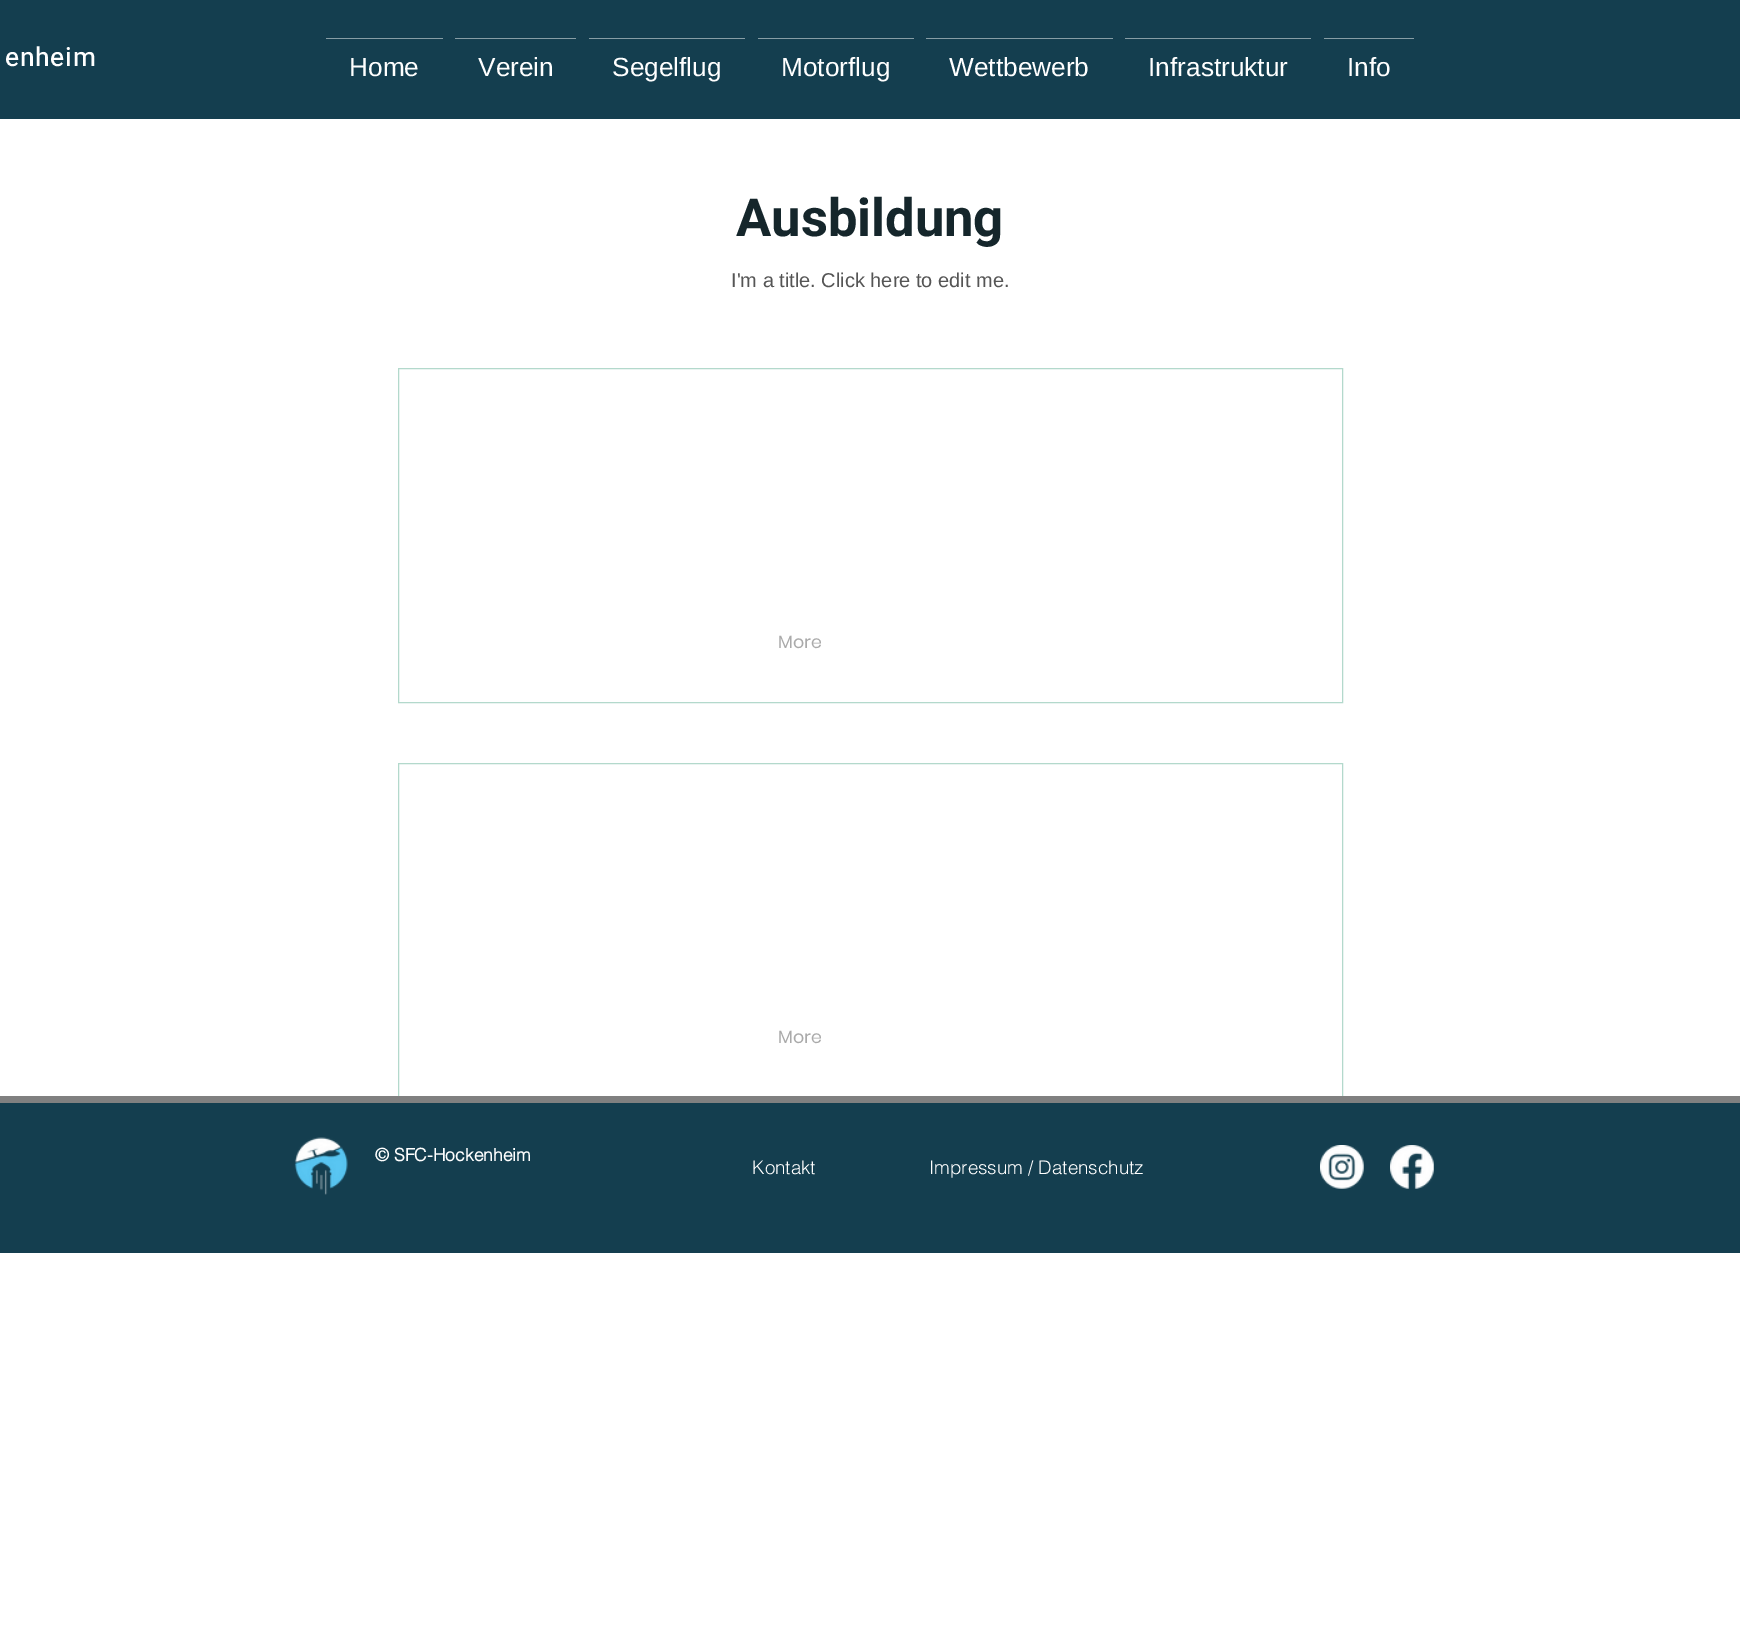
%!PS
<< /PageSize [1740 1628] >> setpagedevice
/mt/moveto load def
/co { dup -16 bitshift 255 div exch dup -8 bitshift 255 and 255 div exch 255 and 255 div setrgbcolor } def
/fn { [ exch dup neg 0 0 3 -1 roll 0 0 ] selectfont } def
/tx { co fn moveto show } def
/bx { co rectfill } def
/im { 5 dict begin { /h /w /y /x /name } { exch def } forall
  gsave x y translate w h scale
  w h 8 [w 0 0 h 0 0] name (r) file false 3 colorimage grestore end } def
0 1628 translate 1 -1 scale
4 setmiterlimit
0 0 1740 1628 16#FFFFFF bx
0 0 1740 119 16#143E4F bx
326 38 117 1 16#879DA5 bx
455 38 121 1 16#879DA5 bx
589 38 156 1 16#879DA5 bx
758 38 156 1 16#879DA5 bx
926 38 187 1 16#879DA5 bx
1125 38 186 1 16#879DA5 bx
1324 38 90 1 16#879DA5 bx
16#B3D9CC co
398.5 368.5 944 334 rectstroke
398.5 763.5 944 334 rectstroke
0 1103 1740 150 16#143E4F bx
0 1096 1740 7 16#808080 bx
(media/1.raw) 294 1137 54 58 im
(media/2.raw) 1320 1145 44 44 im
(media/3.raw) 1390 1145 44 44 im
/Heebo-Medium 26.25 fn
16#FFFFFF co
5 66 mt .75 0 (enheim) ashow
(Home) 349 76 /LiberationSans-Regular 26.25 16#FFFFFF tx
(Verein) 478 76 /LiberationSans-Regular 26.25 16#FFFFFF tx
(Segelflug) 612 76 /LiberationSans-Regular 26.25 16#FFFFFF tx
(Motorflug) 781 76 /LiberationSans-Regular 26.25 16#FFFFFF tx
(Wettbewerb) 949 76 /LiberationSans-Regular 26.25 16#FFFFFF tx
(Infrastruktur) 1148 76 /LiberationSans-Regular 26.25 16#FFFFFF tx
(Info) 1347 76 /LiberationSans-Regular 26.25 16#FFFFFF tx
(Ausbildung) 736 236 /Roboto-Bold 52.5 16#15262B tx
(I'm a title. Click here to edit me.) 731 287 /LiberationSans-Regular 20 16#555555 tx
(More) 778 648 /Poppins-Regular 17.5 16#AAAAAA tx
(More) 778 1043 /Poppins-Regular 17.5 16#AAAAAA tx
(© SFC-Hockenheim) 375 1161 /helvetica-Bold 17.5 16#FFFFFF tx
(Kontakt) 752 1174 /helvetica-Light 18.75 16#FFFFFF tx
(Impressum / Datenschutz) 929 1174 /helvetica-Light 18.75 16#FFFFFF tx
showpage
